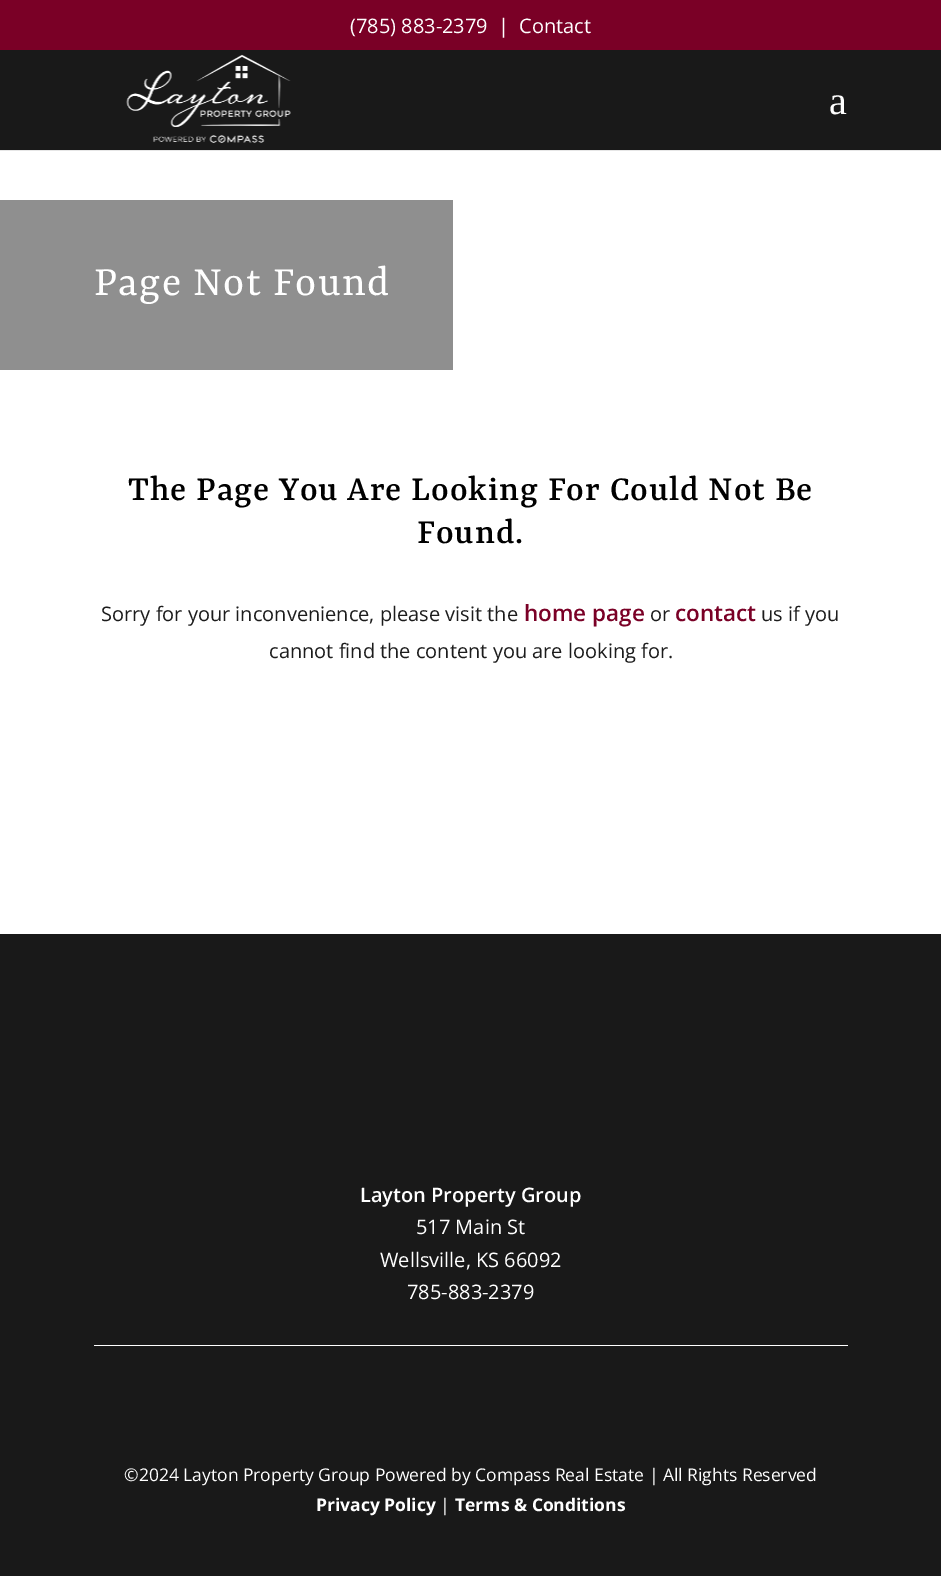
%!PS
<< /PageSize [941 1585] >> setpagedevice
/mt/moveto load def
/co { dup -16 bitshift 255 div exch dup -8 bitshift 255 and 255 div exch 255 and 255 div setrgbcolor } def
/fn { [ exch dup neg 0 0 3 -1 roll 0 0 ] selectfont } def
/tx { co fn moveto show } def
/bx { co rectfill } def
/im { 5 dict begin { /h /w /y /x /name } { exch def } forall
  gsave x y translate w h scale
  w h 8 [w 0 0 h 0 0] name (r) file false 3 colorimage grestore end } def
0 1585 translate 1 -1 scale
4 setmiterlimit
0 0 941 1585 16#FFFFFF bx
0 0 941 50 16#7A0026 bx
0 150 941 1 16#E6E6E6 bx
0 50 941 100 16#191919 bx
(media/1.raw) 126 54 165 89 im
0 200 453 170 16#8F8F8F bx
0 934 941 642 16#191919 bx
94 1345 754 1 16#FFFFFF bx
(\(785\) 883-2379) 350 33 /OpenSans-Regular 20 16#FFFFFF tx
(|) 498 33 /OpenSans-Regular 20 16#FFFFFF tx
(Contact) 519 33 /OpenSans-Regular 20 16#FFFFFF tx
(a) 829 114 /LiberationSerif-Regular 40 16#FFFFFF tx
/Yrsa-Regular 45 fn
94 295 mt 1.25 0 (Page Not Found) ashow
/Yrsa-Medium 37.5 fn
16#000000 co
128 500 mt .95 0 (The Page You Are Looking For Could Not Be) ashow
417 543 mt .95 0 (Found.) ashow
(Sorry for your inconvenience, please visit the) 101 621 /OpenSans-Regular 20 16#1C1C1C tx
(home page) 524 621 /OpenSans-SemiBold 22.5 16#7A0026 tx
(or) 650 621 /OpenSans-Regular 20 16#1C1C1C tx
(contact) 675 621 /OpenSans-SemiBold 22.5 16#7A0026 tx
(us if you) 761 621 /OpenSans-Regular 20 16#1C1C1C tx
(cannot find the content you are looking for.) 269 658 /OpenSans-Regular 20 16#1C1C1C tx
(Layton Property Group) 360 1202 /OpenSans-SemiBold 20 16#FFFFFF tx
(517 Main St) 416 1234 /OpenSans-Regular 20 16#FFFFFF tx
(Wellsville, KS 66092) 380 1267 /OpenSans-Regular 20 16#FFFFFF tx
(785-883-2379) 407 1299 /OpenSans-Regular 20 16#FFFFFF tx
(©2024 Layton Property Group Powered by Compass Real Estate | All Rights Reserved) 124 1481 /OpenSans-Regular 17.5 16#FFFFFF tx
(Privacy Policy) 316 1511 /OpenSans-Bold 17.5 16#FFFFFF tx
(|) 440 1511 /OpenSans-Regular 17.5 16#FFFFFF tx
(Terms & Conditions) 455 1511 /OpenSans-Bold 17.5 16#FFFFFF tx
showpage
